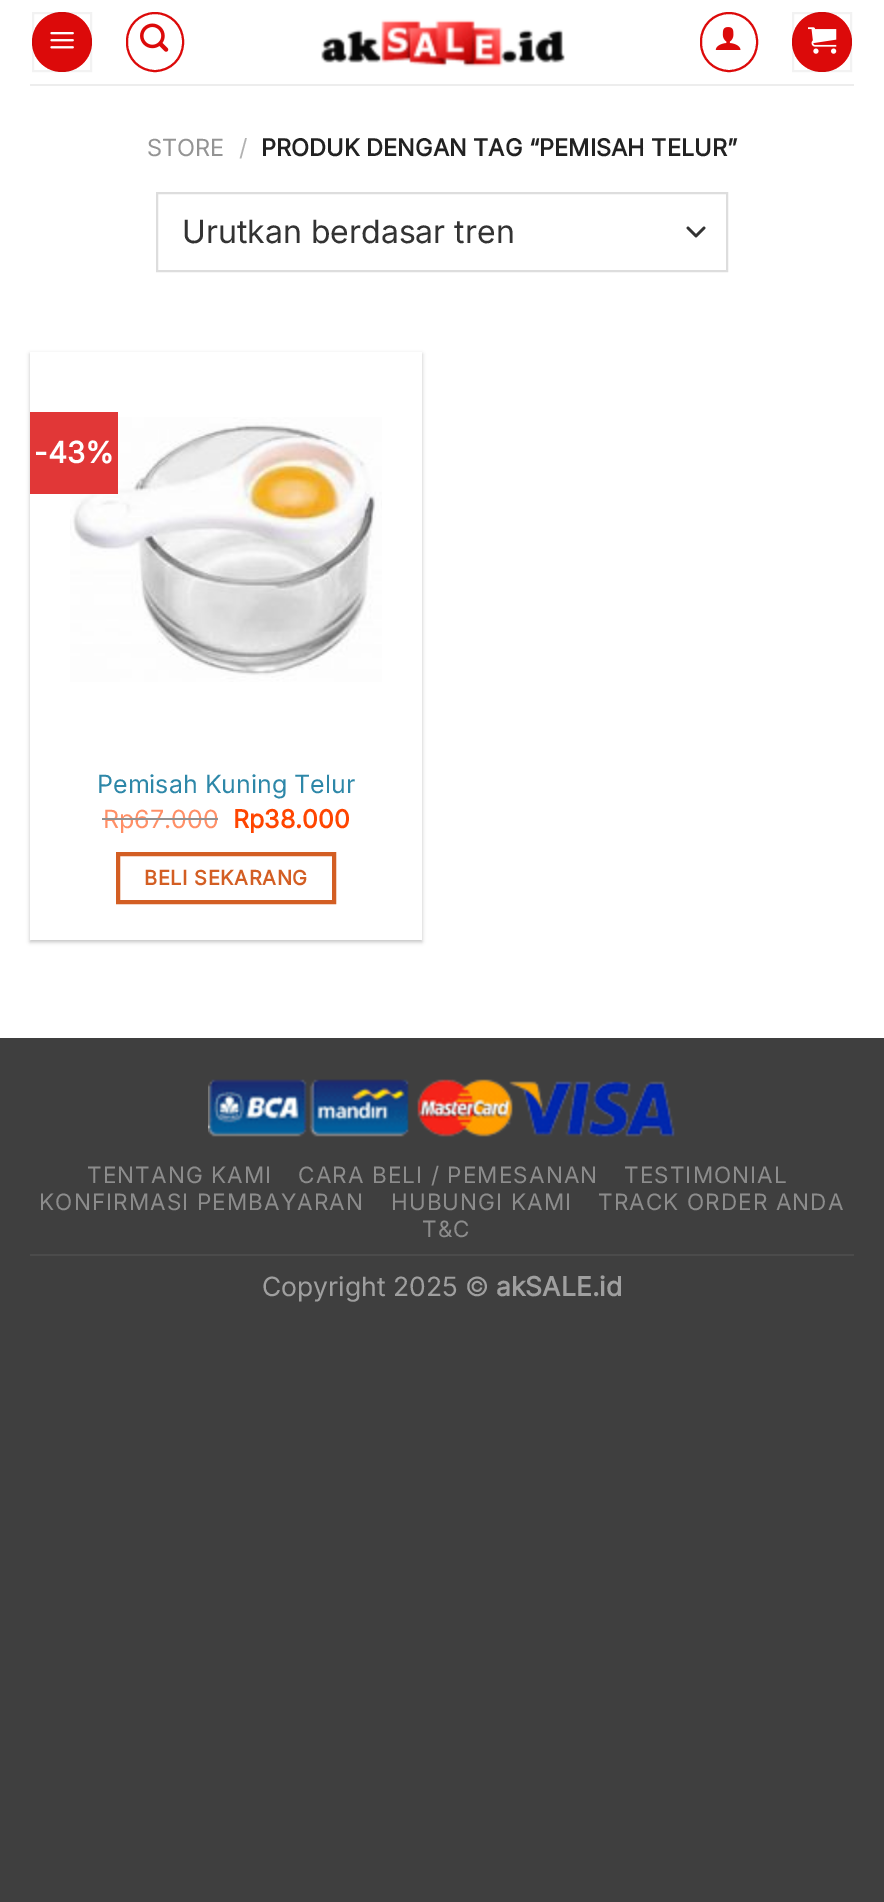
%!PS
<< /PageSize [884 1902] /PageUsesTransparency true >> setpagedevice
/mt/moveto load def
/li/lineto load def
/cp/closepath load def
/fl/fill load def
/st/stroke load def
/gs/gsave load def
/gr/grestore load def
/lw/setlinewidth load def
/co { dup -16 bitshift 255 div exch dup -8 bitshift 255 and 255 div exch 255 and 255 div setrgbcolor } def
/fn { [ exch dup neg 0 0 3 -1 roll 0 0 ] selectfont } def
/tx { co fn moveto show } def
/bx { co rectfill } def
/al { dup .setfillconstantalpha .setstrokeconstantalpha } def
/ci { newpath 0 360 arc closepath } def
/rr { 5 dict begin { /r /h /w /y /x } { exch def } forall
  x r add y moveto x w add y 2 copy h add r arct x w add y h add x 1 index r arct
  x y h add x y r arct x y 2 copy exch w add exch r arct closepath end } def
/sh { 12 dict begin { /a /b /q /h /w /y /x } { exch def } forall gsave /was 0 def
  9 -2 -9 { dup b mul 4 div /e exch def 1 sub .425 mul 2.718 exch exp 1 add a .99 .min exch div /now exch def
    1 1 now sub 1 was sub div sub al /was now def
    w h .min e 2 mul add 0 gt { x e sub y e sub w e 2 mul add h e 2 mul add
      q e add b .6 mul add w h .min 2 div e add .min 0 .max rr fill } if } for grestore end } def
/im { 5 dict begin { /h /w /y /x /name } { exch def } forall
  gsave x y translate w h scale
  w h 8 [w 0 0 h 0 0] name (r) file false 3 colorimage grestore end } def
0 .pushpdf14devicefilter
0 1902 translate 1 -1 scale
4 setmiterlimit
0 0 884 1902 16#3F3F3F bx
0 0 884 1038 16#FFFFFF bx
16#DC0A0A co
62 42 30 ci fl
0.05 al
16#000000 co
2 lw
33 13 58 58 rectstroke
1 al
(media/1.raw) 50 32 24 17 im
16#DC0A0A co
127 13 56 58 28 rr st
(media/2.raw) 140 23 29 29 im
(media/3.raw) 321 19 244 48 im
701 13 56 58 28 rr st
(media/4.raw) 715 27 26 23 im
822 42 30 ci fl
0.05 al
16#000000 co
793 13 58 58 rectstroke
1 al
(media/5.raw) 808 27 29 27 im
30 84 824 2 16#EDEDED bx
16#333333 co
2.7 lw
1 setlinecap
1 setlinejoin
688 228 mt 696 236 li 704 228 li st
16#DDDDDD co
2 lw
0 setlinecap
0 setlinejoin
157 193 570 78 rectstroke
gs
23 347 mt 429 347 li 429 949 li 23 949 li cp 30 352 mt 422 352 li 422 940 li 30 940 li cp eoclip newpath
16#000000 co
30 354 392 588 0 2 .24 sh
gr
(media/6.raw) 70 417 312 265 im
30 412 88 82 16#E13737 bx
16#D35E23 co
4 lw
118 854 216 48 rectstroke
(media/7.raw) 208 1079 467 58 im
30 1254 824 2 16#4B4B4B bx
(STORE) 147 156 /Inter-Regular 23.55 16#949494 tx
(/) 239 156 /Inter-Regular 23.55 16#B2B2B2 tx
(PRODUK DENGAN TAG “PEMISAH TELUR”) 261 156 /Inter-Bold 23.55 16#222222 tx
(Urutkan berdasar tren) 182 243 /Inter-Regular 32 16#333333 tx
(-43%) 34 463 /Inter-Bold 29.5 16#FFFFFF tx
(Pemisah Kuning Telur) 97 793 /Inter-Regular 25 16#2D87A8 tx
(Rp67.000) 103 828 /Inter-Regular 25 16#FF8F66 tx
102 818 116 2 16#929292 bx
(Rp38.000) 233 828 /Inter-Bold 25 16#FF4500 tx
/Inter-Bold 20 fn
16#D35E23 co
144 885 mt .6 0 (BELI SEKARANG) ashow
/Inter-Regular 22.5 fn
16#8C8C8C co
87 1183 mt 1.1 0 (TENTANG KAMI) ashow
298 1183 mt 1.1 0 (CARA BELI / PEMESANAN) ashow
624 1183 mt 1.1 0 (TESTIMONIAL) ashow
39 1210 mt 1.1 0 (KONFIRMASI PEMBAYARAN) ashow
391 1210 mt 1.1 0 (HUBUNGI KAMI) ashow
598 1210 mt 1.1 0 (TRACK ORDER ANDA) ashow
422 1237 mt 1.1 0 (T&C) ashow
(Copyright 2025 ©) 262 1296 /Inter-Regular 26.5 16#9F9F9F tx
(akSALE.id) 496 1296 /Inter-Bold 26.5 16#9F9F9F tx
.poppdf14devicefilter showpage
